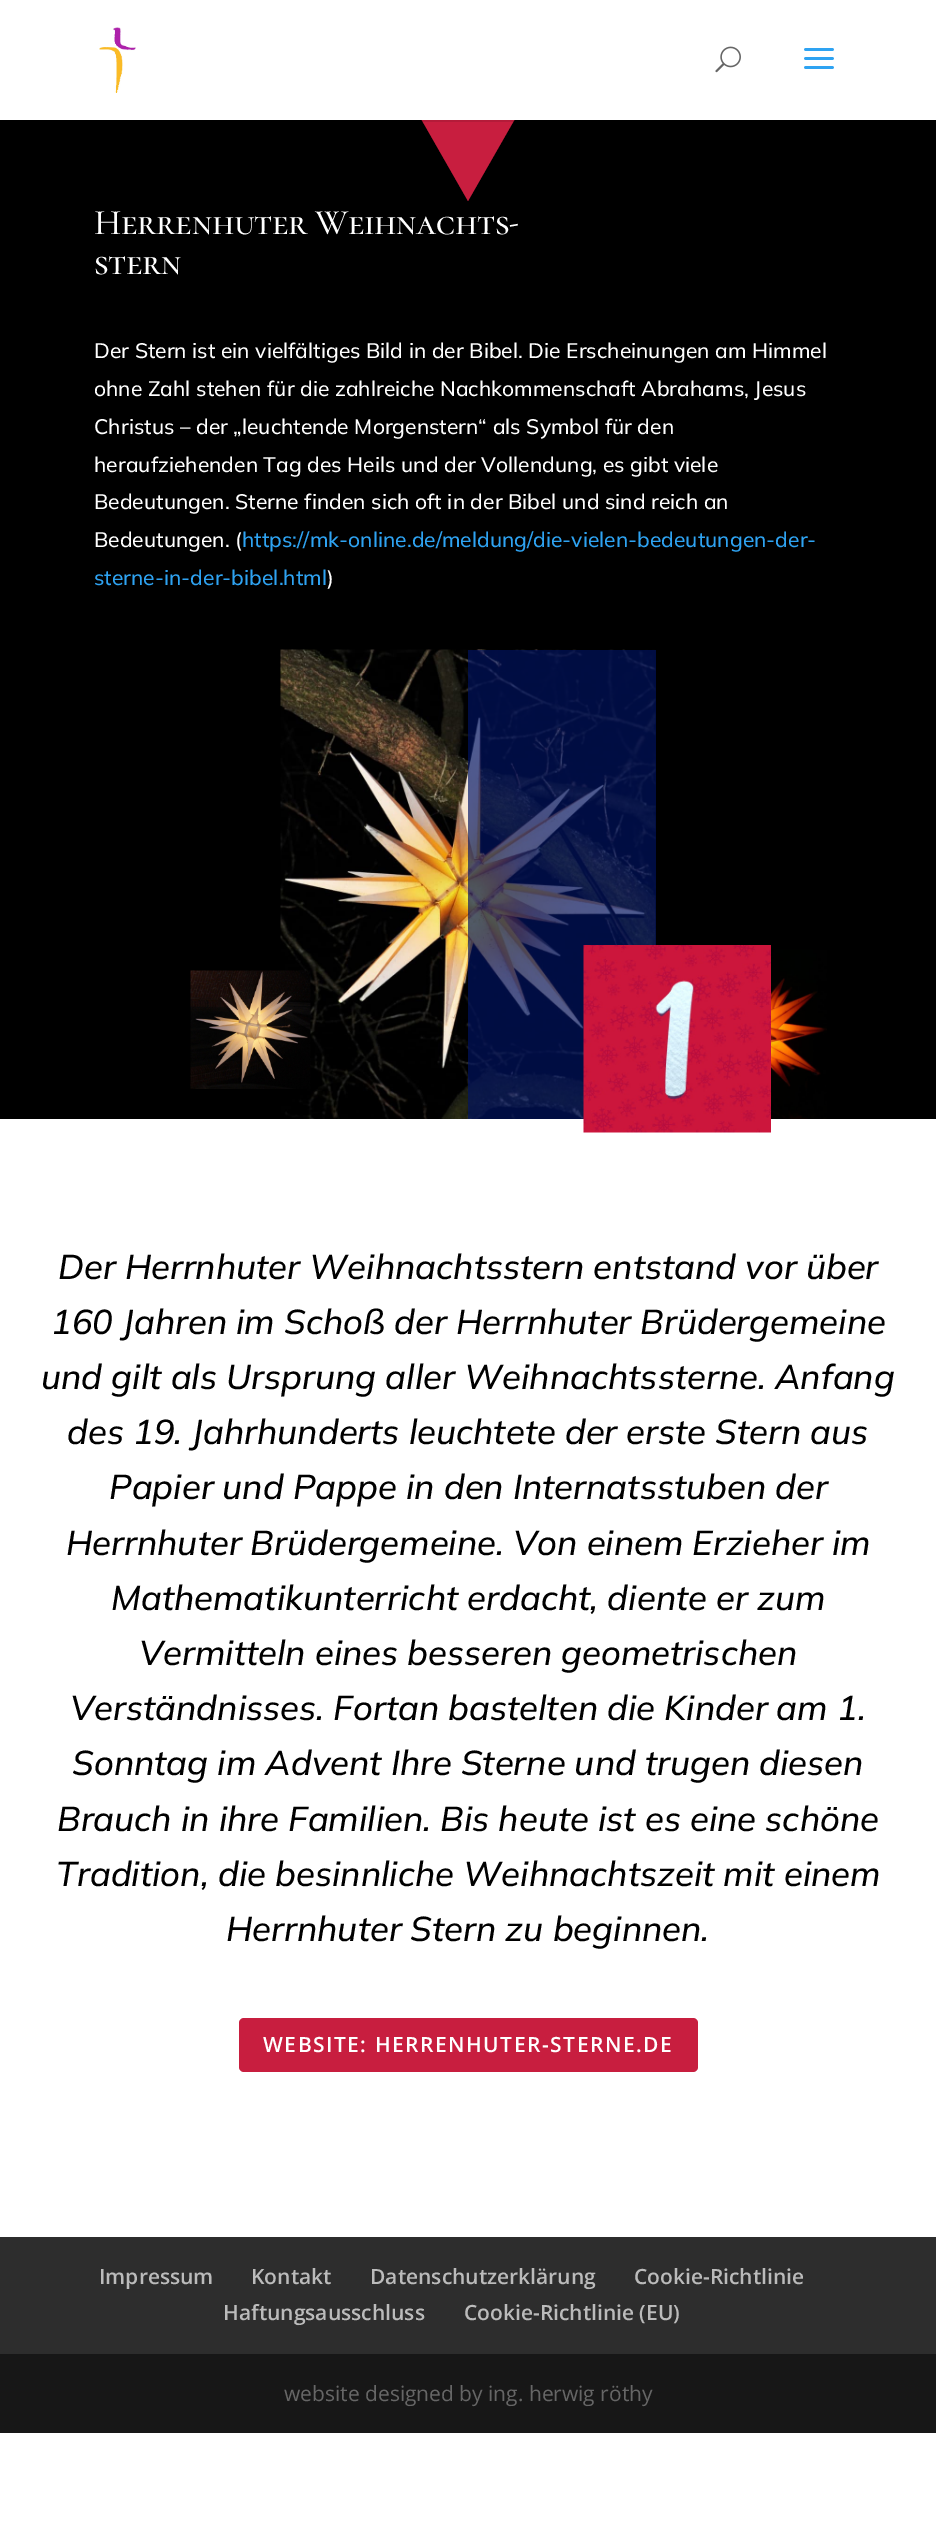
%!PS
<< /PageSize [936 2532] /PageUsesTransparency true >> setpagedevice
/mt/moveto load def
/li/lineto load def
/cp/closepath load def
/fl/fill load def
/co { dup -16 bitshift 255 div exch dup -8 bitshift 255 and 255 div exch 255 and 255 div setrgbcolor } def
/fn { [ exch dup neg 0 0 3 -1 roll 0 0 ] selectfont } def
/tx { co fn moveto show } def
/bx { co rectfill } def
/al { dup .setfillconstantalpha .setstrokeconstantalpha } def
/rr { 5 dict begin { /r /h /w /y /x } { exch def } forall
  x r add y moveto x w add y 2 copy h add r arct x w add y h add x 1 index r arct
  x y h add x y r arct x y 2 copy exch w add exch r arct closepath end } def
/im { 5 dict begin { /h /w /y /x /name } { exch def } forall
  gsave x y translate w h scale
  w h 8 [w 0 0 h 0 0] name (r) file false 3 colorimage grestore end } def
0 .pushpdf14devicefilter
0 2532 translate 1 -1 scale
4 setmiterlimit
0 0 936 2532 16#FFFFFF bx
0 120 936 999 16#000000 bx
16#C81E3F co
468 201 mt 0 -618 li 936 -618 li cp fl
0.1 al
422 120 92 2 16#000000 bx
1 al
353 0 230 120 16#FFFFFF bx
(media/1.raw) 99 27 37 66 im
(media/2.raw) 715 46 26 27 im
(media/3.raw) 804 48 30 21 im
(media/5.raw) 280 649 376 470 im
(media/4.raw) 190 970 121 119 im
0.67 al
468 650 188 469 16#001363 bx
1 al
(media/6.raw) 583 945 188 188 im
(media/7.raw) 771 949 56 170 im
16#C81E3F co
239 2018 459 54 5 rr fl
0 2237 936 117 16#2D2D2D bx
0 2354 936 79 16#171717 bx
/CormorantSC-Medium 36 fn
16#FFFFFF co
94 234 mt -.4 0 (Herrenhuter Weihnachts-) ashow
94 274 mt -.4 0 (stern) ashow
(Der Stern ist ein vielfältiges Bild in der Bibel. Die Erscheinungen am Himmel) 94 358 /Mulish-ExtraLight 21 16#FFFFFF tx
(ohne Zahl stehen für die zahlreiche Nachkommenschaft Abrahams, Jesus) 94 396 /Mulish-ExtraLight 21 16#FFFFFF tx
(Christus – der „leuchtende Morgenstern“ als Symbol für den) 94 434 /Mulish-ExtraLight 21 16#FFFFFF tx
(heraufziehenden Tag des Heils und der Vollendung, es gibt viele) 94 472 /Mulish-ExtraLight 21 16#FFFFFF tx
(Bedeutungen. Sterne finden sich oft in der Bibel und sind reich an) 94 509 /Mulish-ExtraLight 21 16#FFFFFF tx
(Bedeutungen. \() 94 547 /Mulish-ExtraLight 21 16#FFFFFF tx
(https://mk-online.de/meldung/die-vielen-bedeutungen-der-) 242 547 /Mulish-ExtraLight 21 16#2EA3F2 tx
(sterne-in-der-bibel.html) 94 585 /Mulish-ExtraLight 21 16#2EA3F2 tx
(\)) 327 585 /Mulish-ExtraLight 21 16#FFFFFF tx
(Der Herrnhuter Weihnachtsstern entstand vor über) 58 1279 /Mulish-ExtraLightItalic 34.5 16#000000 tx
(160 Jahren im Schoß der Herrnhuter Brüdergemeine) 51 1334 /Mulish-ExtraLightItalic 34.5 16#000000 tx
(und gilt als Ursprung aller Weihnachtssterne. Anfang) 41 1389 /Mulish-ExtraLightItalic 34.5 16#000000 tx
(des 19. Jahrhunderts leuchtete der erste Stern aus) 67 1444 /Mulish-ExtraLightItalic 34.5 16#000000 tx
(Papier und Pappe in den Internatsstuben der) 109 1499 /Mulish-ExtraLightItalic 34.5 16#000000 tx
(Herrnhuter Brüdergemeine. Von einem Erzieher im) 66 1555 /Mulish-ExtraLightItalic 34.5 16#000000 tx
(Mathematikunterricht erdacht, diente er zum) 111 1610 /Mulish-ExtraLightItalic 34.5 16#000000 tx
(Vermitteln eines besseren geometrischen) 139 1665 /Mulish-ExtraLightItalic 34.5 16#000000 tx
(Verständnisses. Fortan bastelten die Kinder am 1.) 70 1720 /Mulish-ExtraLightItalic 34.5 16#000000 tx
(Sonntag im Advent Ihre Sterne und trugen diesen) 72 1775 /Mulish-ExtraLightItalic 34.5 16#000000 tx
(Brauch in ihre Familien. Bis heute ist es eine schöne) 57 1831 /Mulish-ExtraLightItalic 34.5 16#000000 tx
(Tradition, die besinnliche Weihnachtszeit mit einem) 56 1886 /Mulish-ExtraLightItalic 34.5 16#000000 tx
(Herrnhuter Stern zu beginnen.) 226 1941 /Mulish-ExtraLightItalic 34.5 16#000000 tx
/OpenSans-SemiBold 21 fn
16#FFFFFF co
263 2052 mt 1.5 0 (WEBSITE: HERRENHUTER-STERNE.DE) ashow
(Impressum) 99 2284 /OpenSans-SemiBold 21 16#BBBBBB tx
(Kontakt) 251 2284 /OpenSans-SemiBold 21 16#BBBBBB tx
(Datenschutzerklärung) 370 2284 /OpenSans-SemiBold 21 16#BBBBBB tx
(Cookie-Richtlinie) 634 2284 /OpenSans-SemiBold 21 16#BBBBBB tx
(Haftungsausschluss) 223 2320 /OpenSans-SemiBold 21 16#BBBBBB tx
(Cookie-Richtlinie \(EU\)) 464 2320 /OpenSans-SemiBold 21 16#BBBBBB tx
(website designed by ing. herwig röthy) 284 2401 /OpenSans-Regular 21 16#666666 tx
.poppdf14devicefilter showpage
